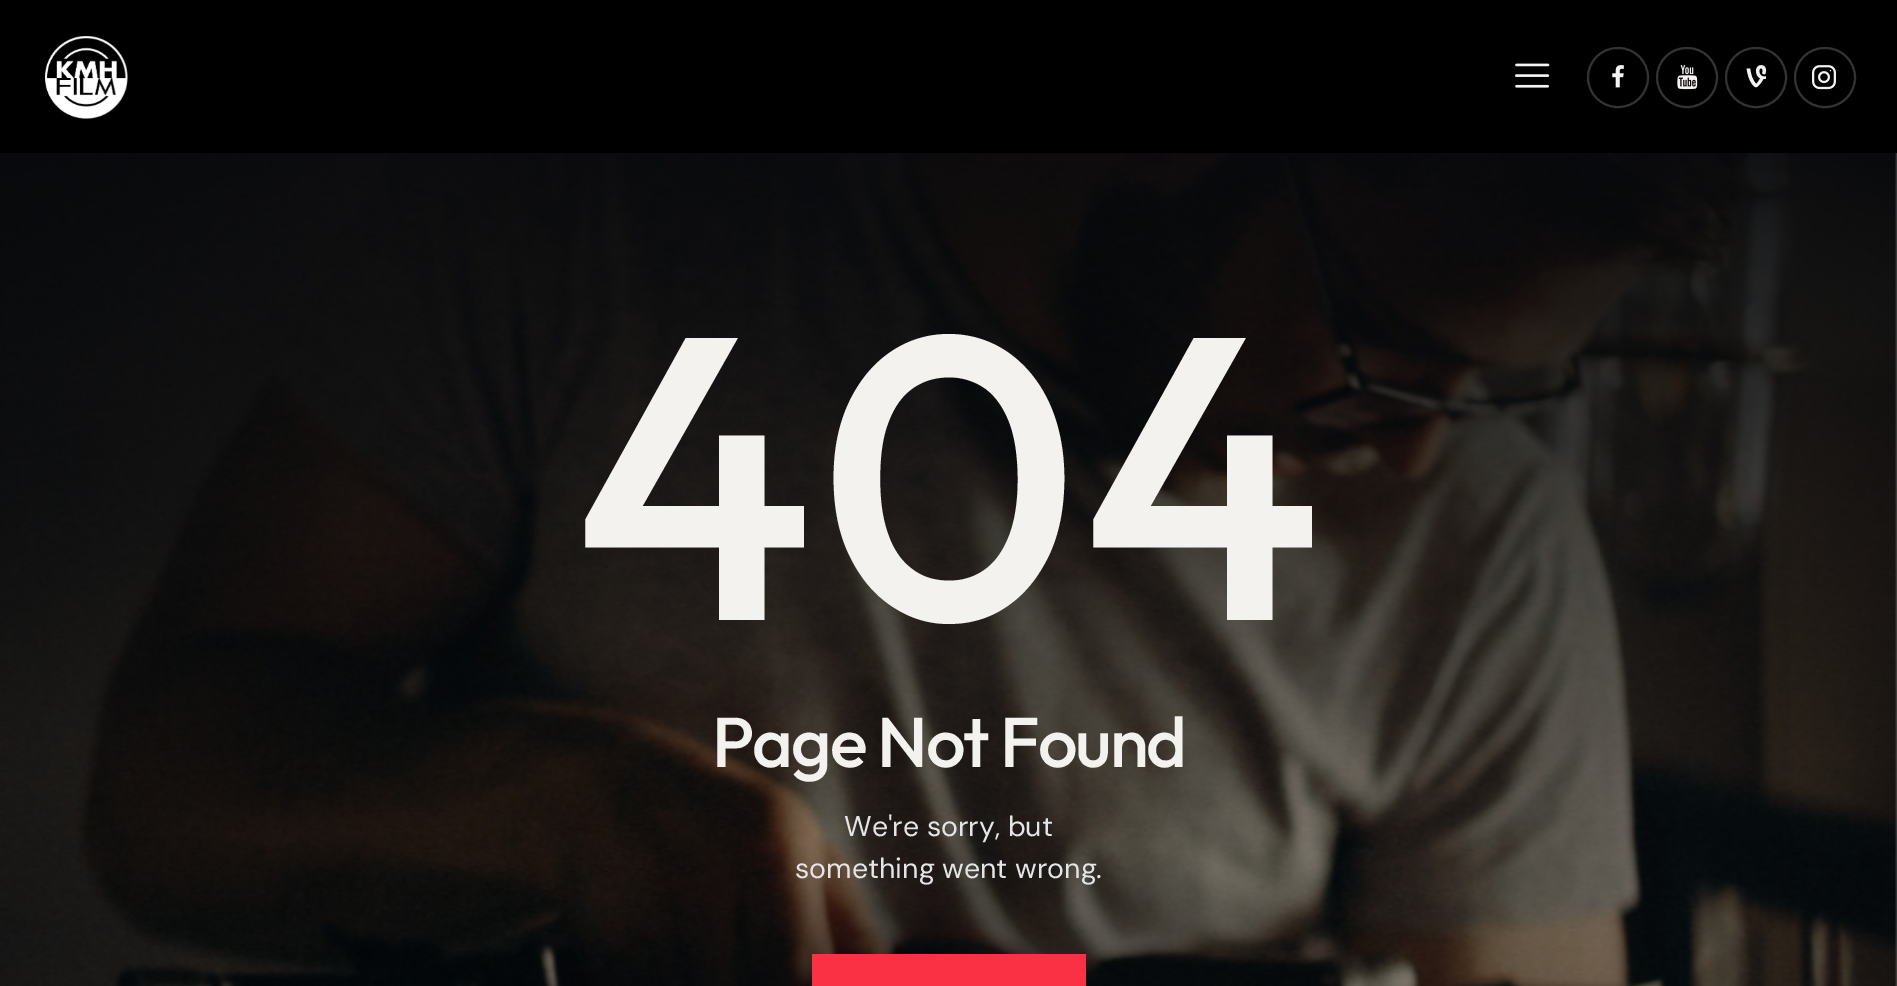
%!PS
<< /PageSize [1897 986] >> setpagedevice
/mt/moveto load def
/st/stroke load def
/lw/setlinewidth load def
/co { dup -16 bitshift 255 div exch dup -8 bitshift 255 and 255 div exch 255 and 255 div setrgbcolor } def
/fn { [ exch dup neg 0 0 3 -1 roll 0 0 ] selectfont } def
/tx { co fn moveto show } def
/bx { co rectfill } def
/rr { 5 dict begin { /r /h /w /y /x } { exch def } forall
  x r add y moveto x w add y 2 copy h add r arct x w add y h add x 1 index r arct
  x y h add x y r arct x y 2 copy exch w add exch r arct closepath end } def
/im { 5 dict begin { /h /w /y /x /name } { exch def } forall
  gsave x y translate w h scale
  w h 8 [w 0 0 h 0 0] name (r) file false 3 colorimage grestore end } def
0 986 translate 1 -1 scale
4 setmiterlimit
0 0 1897 986 16#FFFFFF bx
(media/1.raw) 0 153 1897 833 im
0 0 1897 153 16#000000 bx
(media/2.raw) 45 36 83 83 im
(media/3.raw) 1515 63 35 25 im
16#333333 co
2 lw
1588 48 60 59 29.5 rr st
(media/4.raw) 1612 65 12 23 im
1657 48 60 59 29.5 rr st
(media/5.raw) 1677 65 21 25 im
1726 48 60 59 29.5 rr st
(media/6.raw) 1746 65 21 23 im
1795 48 60 59 29.5 rr st
(media/7.raw) 1812 65 24 25 im
812 954 274 32 16#FA3044 bx
(404) 574 620 /Outfit-Medium 405 16#F4F2EE tx
/Outfit-Medium 70.5 fn
712 767 mt -2.1 0 (Page Not Found) ashow
(We're sorry, but) 844 836 /DMSans-Regular 28.5 16#E4E5E6 tx
(something went wrong.) 795 878 /DMSans-Regular 28.5 16#E4E5E6 tx
showpage
